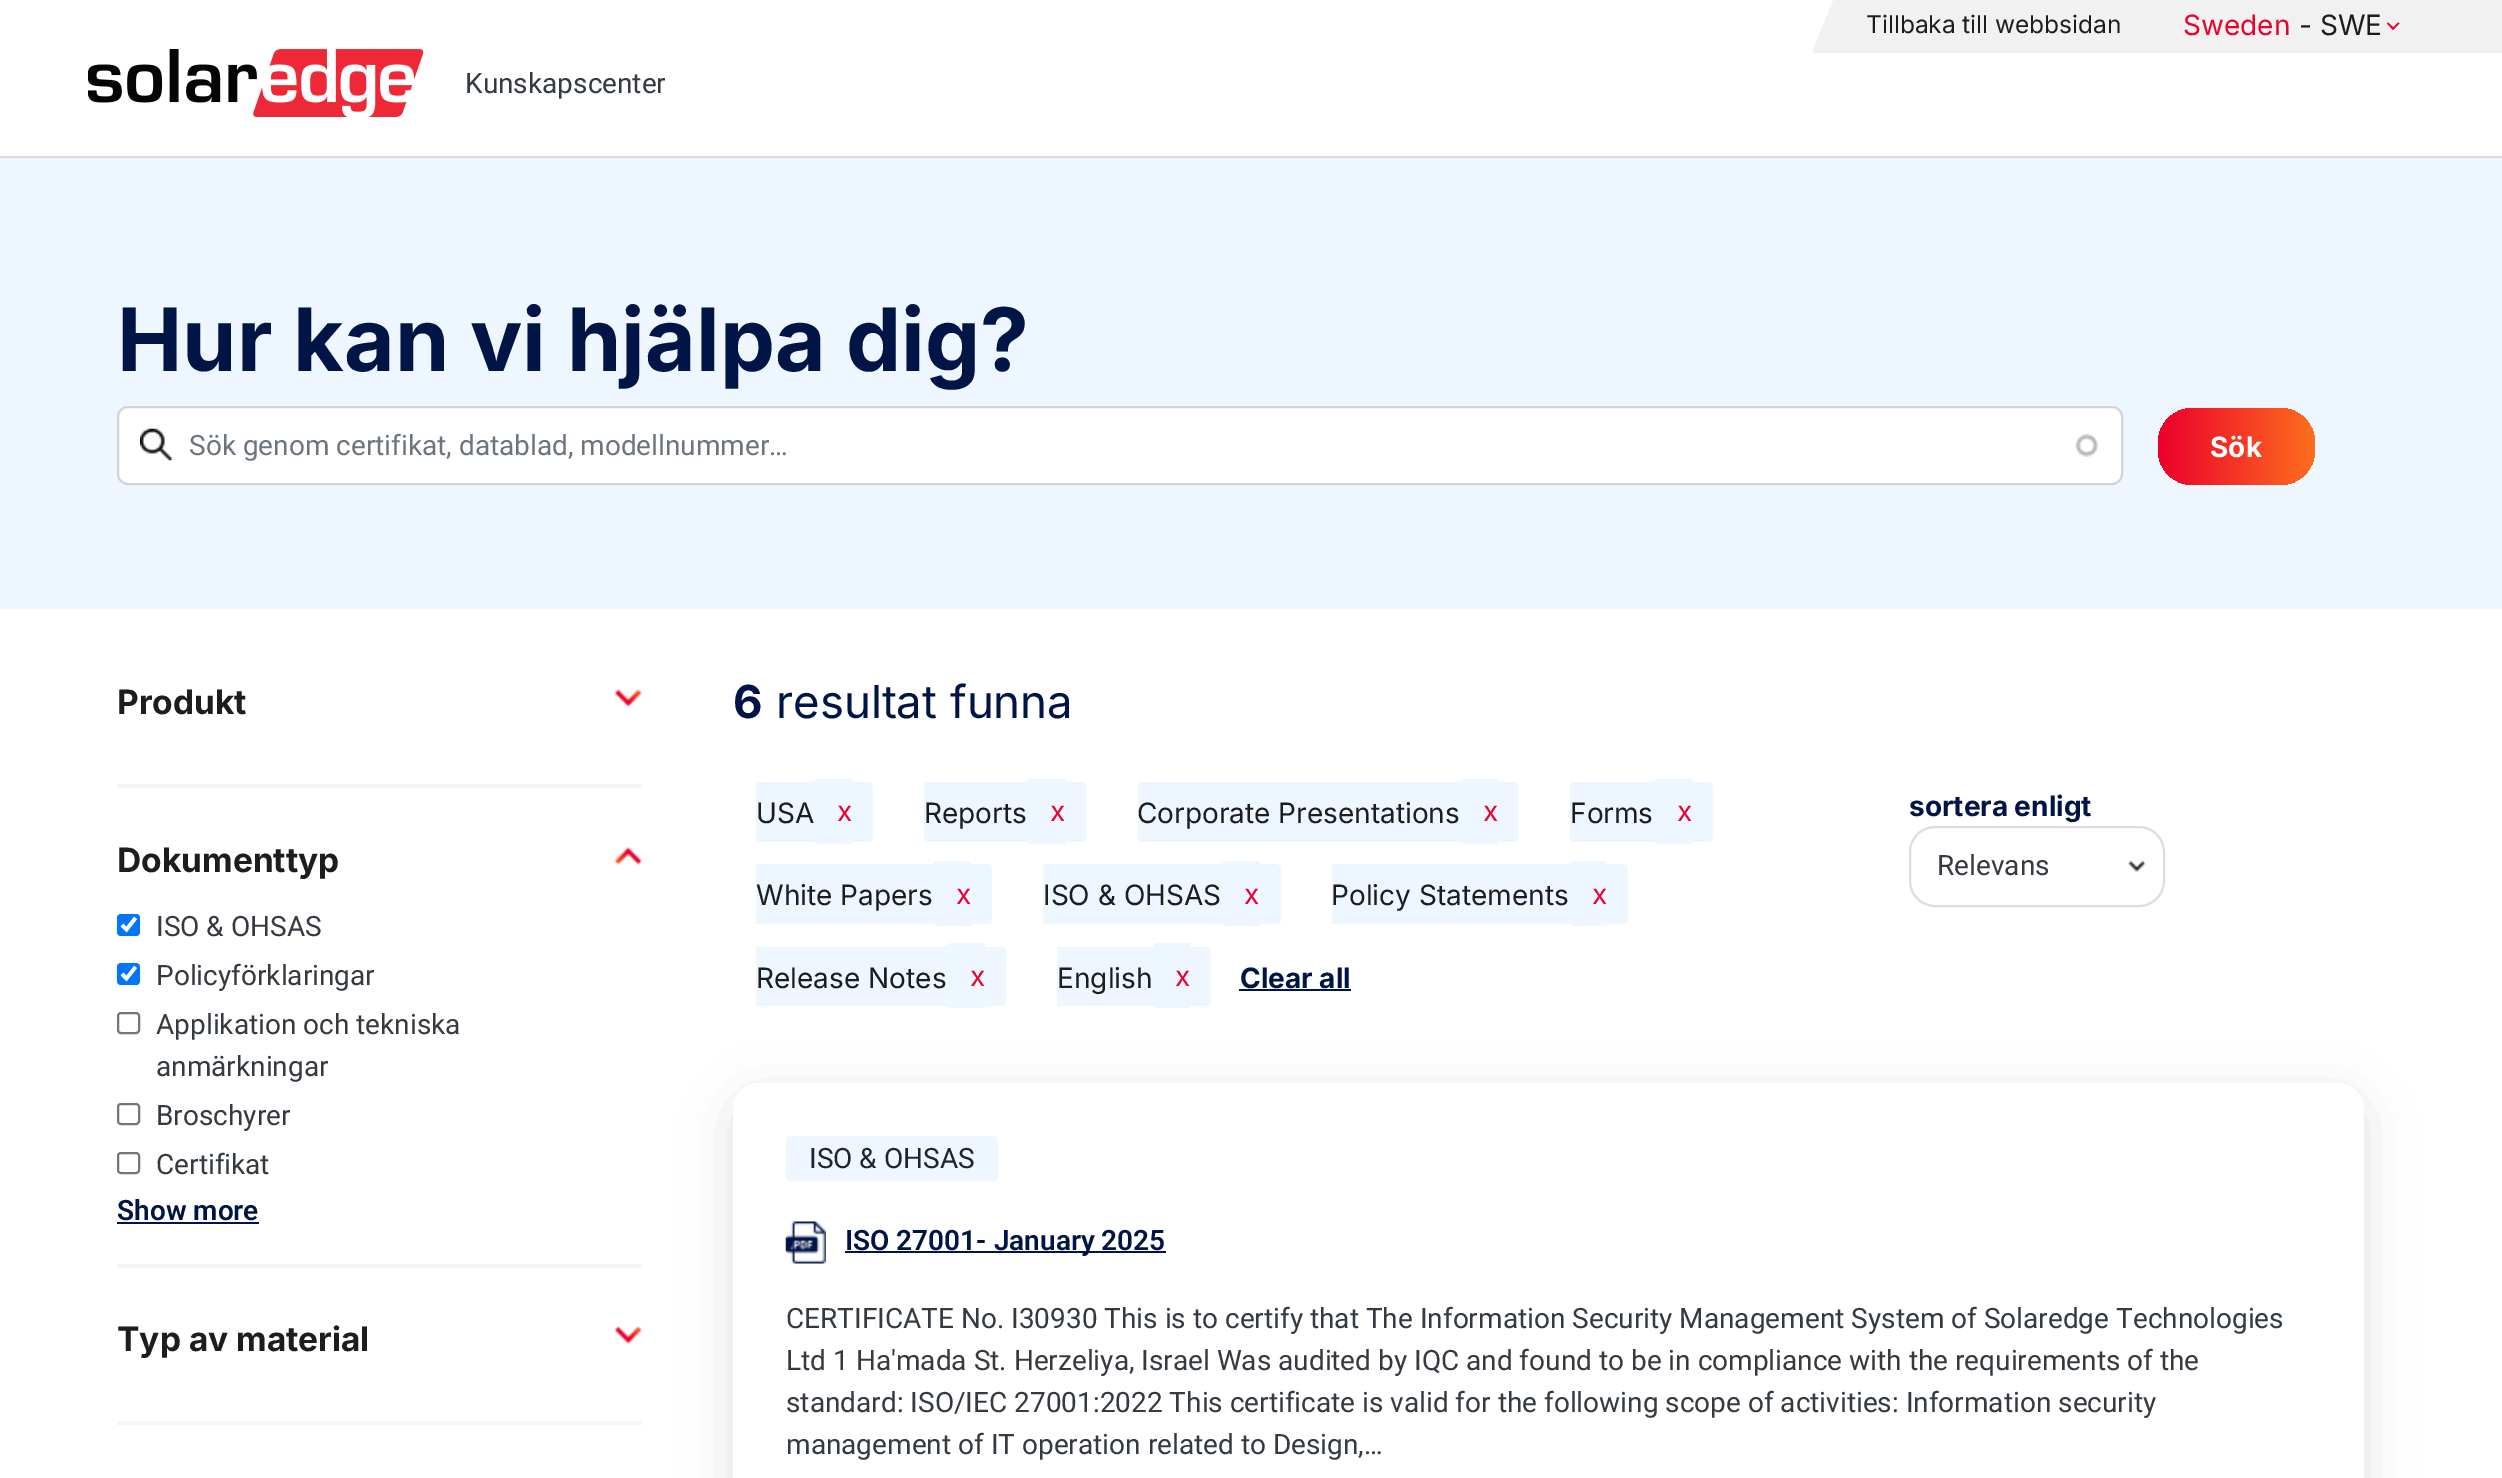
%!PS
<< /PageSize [2502 1478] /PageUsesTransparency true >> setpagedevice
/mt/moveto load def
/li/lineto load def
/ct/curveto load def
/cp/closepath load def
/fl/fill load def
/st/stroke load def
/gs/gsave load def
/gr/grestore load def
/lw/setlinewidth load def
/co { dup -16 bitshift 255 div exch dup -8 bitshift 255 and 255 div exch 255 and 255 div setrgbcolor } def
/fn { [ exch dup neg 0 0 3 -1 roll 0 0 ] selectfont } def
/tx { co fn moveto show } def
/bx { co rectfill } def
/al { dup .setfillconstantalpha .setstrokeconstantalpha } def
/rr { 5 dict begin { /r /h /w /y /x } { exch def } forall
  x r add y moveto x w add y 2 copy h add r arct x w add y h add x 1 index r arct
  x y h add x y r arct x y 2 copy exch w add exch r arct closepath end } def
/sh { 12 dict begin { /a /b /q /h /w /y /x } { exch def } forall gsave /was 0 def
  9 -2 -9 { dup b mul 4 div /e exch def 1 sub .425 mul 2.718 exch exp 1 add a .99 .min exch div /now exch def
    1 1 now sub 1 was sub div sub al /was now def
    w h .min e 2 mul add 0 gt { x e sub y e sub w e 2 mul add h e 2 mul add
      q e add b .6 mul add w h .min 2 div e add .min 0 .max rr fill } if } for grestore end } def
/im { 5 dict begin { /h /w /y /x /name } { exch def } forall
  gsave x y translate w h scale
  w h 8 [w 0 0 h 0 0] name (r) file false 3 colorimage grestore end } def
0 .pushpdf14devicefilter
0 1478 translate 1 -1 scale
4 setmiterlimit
0 0 2502 1478 16#FFFFFF bx
0 156 2502 2 16#DBDBDC bx
1813 0 689 53 16#F1F1F1 bx
16#FFFFFF co
1813 -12 mt 1838 -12 li 1813 49 li cp fl
16#EC012D co
2398 22.5 mt 2399.5 23.5 li 2393 30 li 2392 28.5 li cp fl
2388 22.5 mt 2394.5 28.5 li 2393 30 li 2387 23.5 li cp fl
(media/1.raw) 88 49 336 68 im
0 158 2502 451 16#EEF6FF bx
16#FFFFFF co
119 408 2002 75 9 rr fl
(media/3.raw) 2075 434 24 23 im
16#CED4DA co
2 lw
118 407 2004 77 10 rr st
(media/2.raw) 140 428 32 33 im
gs 2158 408 157 77 35 rr clip newpath
<< /ShadingType 2 /ColorSpace /DeviceRGB /Coords [2158 446 2315 446] /Extend [true true] /Function << /FunctionType 3 /Domain [0 1] /Functions [<< /FunctionType 2 /Domain [0 1] /C0 [.922 0 .173] /C1 [.922 0 .173] /N 1 >> << /FunctionType 2 /Domain [0 1] /C0 [.922 0 .173] /C1 [1 .431 .118] /N 1 >>] /Bounds [.01] /Encode [0 1 0 1] >> >> shfill gr
117 784 525 4 16#F5F5F5 bx
(media/4.raw) 614 689 29 18 im
117 1264 525 4 16#F5F5F5 bx
(media/5.raw) 614 847 29 18 im
16#0075FF co
117 914 23 22 4 rr fl
16#FFFFFF co
3.6 lw
122 925 mt 126.5 929.5 li 135.5 918 li st
16#0075FF co
117 963 23 22 4 rr fl
16#FFFFFF co
122 974 mt 126.5 978.5 li 135.5 967 li st
16#767676 co
2 lw
118 1013 21 20 3 rr st
118 1104 21 20 3 rr st
118 1153 21 20 3 rr st
117 1222 142 2 16#001446 bx
117 1421 525 4 16#F5F5F5 bx
(media/4.raw) 614 1326 29 18 im
16#EEF6FF co
819 779 mt 852 779 li 852 844 li 819 844 li 816 844 814 842 814 839 ct 814 784 li 814 781 816 779 819 779 ct cp fl
819 779 mt 852 779 li 852 844 li 819 844 li 816 844 814 841 814 838 ct 814 784 li 814 781 816 779 819 779 ct cp 819 780 mt 852 780 li 852 842 li 819 842 li 817 842 816 840 816 838 ct 816 784 li 816 782 817 780 819 780 ct cp eofill
756 782 mt 868 782 li 871 782 873 784 873 787 ct 873 837 li 873 840 871 842 868 842 ct 756 842 li cp fl
756 782 mt 868 782 li 871 782 873 785 873 788 ct 873 836 li 873 839 871 842 868 842 ct 756 842 li cp 756 784 mt 868 784 li 870 784 872 786 872 788 ct 872 836 li 872 838 870 840 868 840 ct 756 840 li cp eofill
1032 779 mt 1066 779 li 1066 844 li 1032 844 li 1029 844 1027 842 1027 839 ct 1027 784 li 1027 781 1029 779 1032 779 ct cp fl
1032 779 mt 1066 779 li 1066 844 li 1032 844 li 1030 844 1027 841 1027 838 ct 1027 784 li 1027 781 1030 779 1032 779 ct cp 1032 780 mt 1066 780 li 1066 842 li 1032 842 li 1031 842 1029 840 1029 838 ct 1029 784 li 1029 782 1031 780 1032 780 ct cp eofill
924 782 mt 1082 782 li 1085 782 1087 784 1087 787 ct 1087 837 li 1087 840 1085 842 1082 842 ct 924 842 li cp fl
1466 779 mt 1498 779 li 1498 844 li 1466 844 li 1463 844 1461 842 1461 839 ct 1461 784 li 1461 781 1463 779 1466 779 ct cp fl
1466 779 mt 1498 779 li 1498 844 li 1466 844 li 1464 844 1461 841 1461 838 ct 1461 784 li 1461 781 1464 779 1466 779 ct cp 1466 780 mt 1498 780 li 1498 842 li 1466 842 li 1465 842 1463 840 1463 838 ct 1463 784 li 1463 782 1465 780 1466 780 ct cp eofill
1138 782 mt 1514 782 li 1517 782 1519 784 1519 787 ct 1519 837 li 1519 840 1517 842 1514 842 ct 1138 842 li cp fl
1138 782 mt 1514 782 li 1517 782 1519 785 1519 788 ct 1519 836 li 1519 839 1517 842 1514 842 ct 1138 842 li cp 1138 784 mt 1514 784 li 1516 784 1517 786 1517 788 ct 1517 836 li 1517 838 1516 840 1514 840 ct 1138 840 li cp eofill
1659 779 mt 1692 779 li 1692 844 li 1659 844 li 1656 844 1654 842 1654 839 ct 1654 784 li 1654 781 1656 779 1659 779 ct cp fl
1659 779 mt 1692 779 li 1692 844 li 1659 844 li 1656 844 1654 841 1654 838 ct 1654 784 li 1654 781 1656 779 1659 779 ct cp 1659 780 mt 1692 780 li 1692 842 li 1659 842 li 1657 842 1656 840 1656 838 ct 1656 784 li 1656 782 1657 780 1659 780 ct cp eofill
1570 782 mt 1708 782 li 1711 782 1713 784 1713 787 ct 1713 837 li 1713 840 1711 842 1708 842 ct 1570 842 li cp fl
1570 782 mt 1708 782 li 1711 782 1713 785 1713 788 ct 1713 836 li 1713 839 1711 842 1708 842 ct 1570 842 li cp 1570 784 mt 1708 784 li 1710 784 1712 786 1712 788 ct 1712 836 li 1712 838 1710 840 1708 840 ct 1570 840 li cp eofill
938 861 mt 971 861 li 971 926 li 938 926 li 935 926 933 924 933 921 ct 933 866 li 933 863 935 861 938 861 ct cp fl
938 861 mt 971 861 li 971 926 li 938 926 li 935 926 933 923 933 920 ct 933 866 li 933 863 935 861 938 861 ct cp 938 863 mt 971 863 li 971 924 li 938 924 li 936 924 934 922 934 920 ct 934 866 li 934 864 936 863 938 863 ct cp eofill
756 865 mt 987 865 li 990 865 992 867 992 870 ct 992 919 li 992 922 990 924 987 924 ct 756 924 li cp fl
756 864 mt 987 864 li 990 864 992 867 992 870 ct 992 919 li 992 922 990 924 987 924 ct 756 924 li cp 756 866 mt 987 866 li 989 866 990 868 990 870 ct 990 919 li 990 921 989 922 987 922 ct 756 922 li cp eofill
1227 861 mt 1260 861 li 1260 926 li 1227 926 li 1224 926 1222 924 1222 921 ct 1222 866 li 1222 863 1224 861 1227 861 ct cp fl
1227 861 mt 1260 861 li 1260 926 li 1227 926 li 1224 926 1222 923 1222 920 ct 1222 866 li 1222 863 1224 861 1227 861 ct cp 1227 863 mt 1260 863 li 1260 924 li 1227 924 li 1225 924 1223 922 1223 920 ct 1223 866 li 1223 864 1225 863 1227 863 ct cp eofill
1043 865 mt 1276 865 li 1279 865 1281 867 1281 870 ct 1281 919 li 1281 922 1279 924 1276 924 ct 1043 924 li cp fl
1043 864 mt 1276 864 li 1279 864 1281 867 1281 870 ct 1281 919 li 1281 922 1279 924 1276 924 ct 1043 924 li cp 1043 866 mt 1276 866 li 1278 866 1279 868 1279 870 ct 1279 919 li 1279 921 1278 922 1276 922 ct 1043 922 li cp eofill
1575 861 mt 1607 861 li 1607 926 li 1575 926 li 1572 926 1570 924 1570 921 ct 1570 866 li 1570 863 1572 861 1575 861 ct cp fl
1575 861 mt 1606 861 li 1606 926 li 1575 926 li 1572 926 1570 923 1570 920 ct 1570 866 li 1570 863 1572 861 1575 861 ct cp 1575 863 mt 1606 863 li 1606 924 li 1575 924 li 1573 924 1572 922 1572 920 ct 1572 866 li 1572 864 1573 863 1575 863 ct cp eofill
1332 865 mt 1623 865 li 1626 865 1628 867 1628 870 ct 1628 919 li 1628 922 1626 924 1623 924 ct 1332 924 li cp fl
1332 864 mt 1622 864 li 1625 864 1628 867 1628 870 ct 1628 919 li 1628 922 1625 924 1622 924 ct 1332 924 li cp 1332 866 mt 1622 866 li 1624 866 1626 868 1626 870 ct 1626 919 li 1626 921 1624 922 1622 922 ct 1332 922 li cp eofill
952 943 mt 985 943 li 985 1008 li 952 1008 li 949 1008 947 1006 947 1003 ct 947 948 li 947 945 949 943 952 943 ct cp fl
952 943 mt 985 943 li 985 1008 li 952 1008 li 949 1008 947 1006 947 1003 ct 947 948 li 947 946 949 943 952 943 ct cp 952 945 mt 985 945 li 985 1006 li 952 1006 li 950 1006 948 1005 948 1003 ct 948 948 li 948 947 950 945 952 945 ct cp eofill
756 947 mt 1001 947 li 1004 947 1006 949 1006 952 ct 1006 1001 li 1006 1004 1004 1006 1001 1006 ct 756 1006 li cp fl
756 947 mt 1001 947 li 1004 947 1006 949 1006 952 ct 1006 1001 li 1006 1004 1004 1006 1001 1006 ct 756 1006 li cp 756 948 mt 1001 948 li 1003 948 1004 950 1004 952 ct 1004 1001 li 1004 1003 1003 1004 1001 1004 ct 756 1004 li cp eofill
1158 943 mt 1190 943 li 1190 1008 li 1158 1008 li 1155 1008 1153 1006 1153 1003 ct 1153 948 li 1153 945 1155 943 1158 943 ct cp fl
1158 943 mt 1190 943 li 1190 1008 li 1158 1008 li 1156 1008 1153 1006 1153 1003 ct 1153 948 li 1153 946 1156 943 1158 943 ct cp 1158 945 mt 1190 945 li 1190 1006 li 1158 1006 li 1157 1006 1155 1005 1155 1003 ct 1155 948 li 1155 947 1157 945 1158 945 ct cp eofill
1057 947 mt 1206 947 li 1209 947 1211 949 1211 952 ct 1211 1001 li 1211 1004 1209 1006 1206 1006 ct 1057 1006 li cp fl
1057 947 mt 1206 947 li 1209 947 1211 949 1211 952 ct 1211 1001 li 1211 1004 1209 1006 1206 1006 ct 1057 1006 li cp 1057 948 mt 1206 948 li 1208 948 1209 950 1209 952 ct 1209 1001 li 1209 1003 1208 1004 1206 1004 ct 1057 1004 li cp eofill
1239 989 112 2 16#001446 bx
(media/6.raw) 2128 861 18 11 im
16#DDDDDD co
1910 827 254 79 25 rr st
16#64646F co
733 1096 1631 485 26 25.5 .2 sh
16#FFFFFF co
733 1083 1631 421 26 rr fl
16#EEF6FF co
787 1137 210 43 4 rr gs fl gr
st
(media/7.raw) 785 1221 41 43 im
845 1251 321 2 16#001446 bx
(Tillbaka till webbsidan) 1866 33 /Inter-Regular 24.5 16#1D1D1F tx
(Sweden) 2183 35 /Inter-Regular 28 16#EC012D tx
(- SWE) 2299 35 /Inter-Regular 28 16#1D1D1F tx
(Kunskapscenter) 465 93 /Roboto-Regular 28 16#343A40 tx
(Hur kan vi hjälpa dig?) 117 371 /Inter-Bold 87.5 16#001446 tx
(Sök genom certifikat, datablad, modellnummer…) 189 455 /Roboto-Regular 28 16#6C757D tx
(Sök) 2210 457 /Inter-Bold 28 16#FFFFFF tx
(Produkt) 117 714 /Inter-Bold 33.5 16#1D1D1F tx
(Dokumenttyp) 117 872 /Inter-Bold 33.5 16#1D1D1F tx
(ISO & OHSAS) 156 936 /Roboto-Regular 28 16#343A40 tx
(Policyförklaringar) 156 985 /Roboto-Regular 28 16#343A40 tx
(Applikation och tekniska) 156 1034 /Roboto-Regular 28 16#343A40 tx
(anmärkningar) 156 1076 /Roboto-Regular 28 16#343A40 tx
(Broschyrer) 156 1125 /Roboto-Regular 28 16#343A40 tx
(Certifikat) 156 1174 /Roboto-Regular 28 16#343A40 tx
(Show more) 117 1220 /Roboto-SemiBold 28 16#001446 tx
(Typ av material) 117 1351 /Inter-Bold 33.5 16#1D1D1F tx
(6) 733 718 /Inter-Bold 45.5 16#001446 tx
(resultat funna) 776 718 /Inter-Regular 45.5 16#001446 tx
(USA) 756 823 /Inter-Regular 28 16#1D1D1F tx
(x) 837 821 /Inter-Regular 28 16#EC012D tx
(Reports) 924 823 /Inter-Regular 28 16#1D1D1F tx
(x) 1050 821 /Inter-Regular 28 16#EC012D tx
(Corporate Presentations) 1137 823 /Inter-Regular 28 16#1D1D1F tx
(x) 1483 821 /Inter-Regular 28 16#EC012D tx
(Forms) 1570 823 /Inter-Regular 28 16#1D1D1F tx
(x) 1677 821 /Inter-Regular 28 16#EC012D tx
(White Papers) 756 905 /Inter-Regular 28 16#1D1D1F tx
(x) 956 904 /Inter-Regular 28 16#EC012D tx
(ISO & OHSAS) 1043 905 /Inter-Regular 28 16#1D1D1F tx
(x) 1244 904 /Inter-Regular 28 16#EC012D tx
(Policy Statements) 1331 905 /Inter-Regular 28 16#1D1D1F tx
(x) 1592 904 /Inter-Regular 28 16#EC012D tx
(Release Notes) 756 988 /Inter-Regular 28 16#1D1D1F tx
(x) 970 986 /Inter-Regular 28 16#EC012D tx
(English) 1057 988 /Inter-Regular 28 16#1D1D1F tx
(x) 1175 986 /Inter-Regular 28 16#EC012D tx
(Clear all) 1240 988 /Inter-Bold 28 16#001446 tx
(sortera enligt) 1909 816 /Inter-Bold 28 16#001446 tx
(Relevans) 1937 875 /Roboto-Regular 28 16#343A40 tx
(ISO & OHSAS) 809 1168 /Roboto-Regular 28 16#212529 tx
(ISO 27001- January 2025) 845 1250 /Roboto-SemiBold 28 16#001446 tx
(CERTIFICATE No. I30930 This is to certify that The Information Security Management System of Solaredge Technologies) 786 1328 /Roboto-Regular 28 16#343A40 tx
(Ltd 1 Ha'mada St. Herzeliya, Israel Was audited by IQC and found to be in compliance with the requirements of the) 786 1370 /Roboto-Regular 28 16#343A40 tx
(standard: ISO/IEC 27001:2022 This certificate is valid for the following scope of activities: Information security) 786 1412 /Roboto-Regular 28 16#343A40 tx
(management of IT operation related to Design,…) 786 1454 /Roboto-Regular 28 16#343A40 tx
.poppdf14devicefilter showpage
